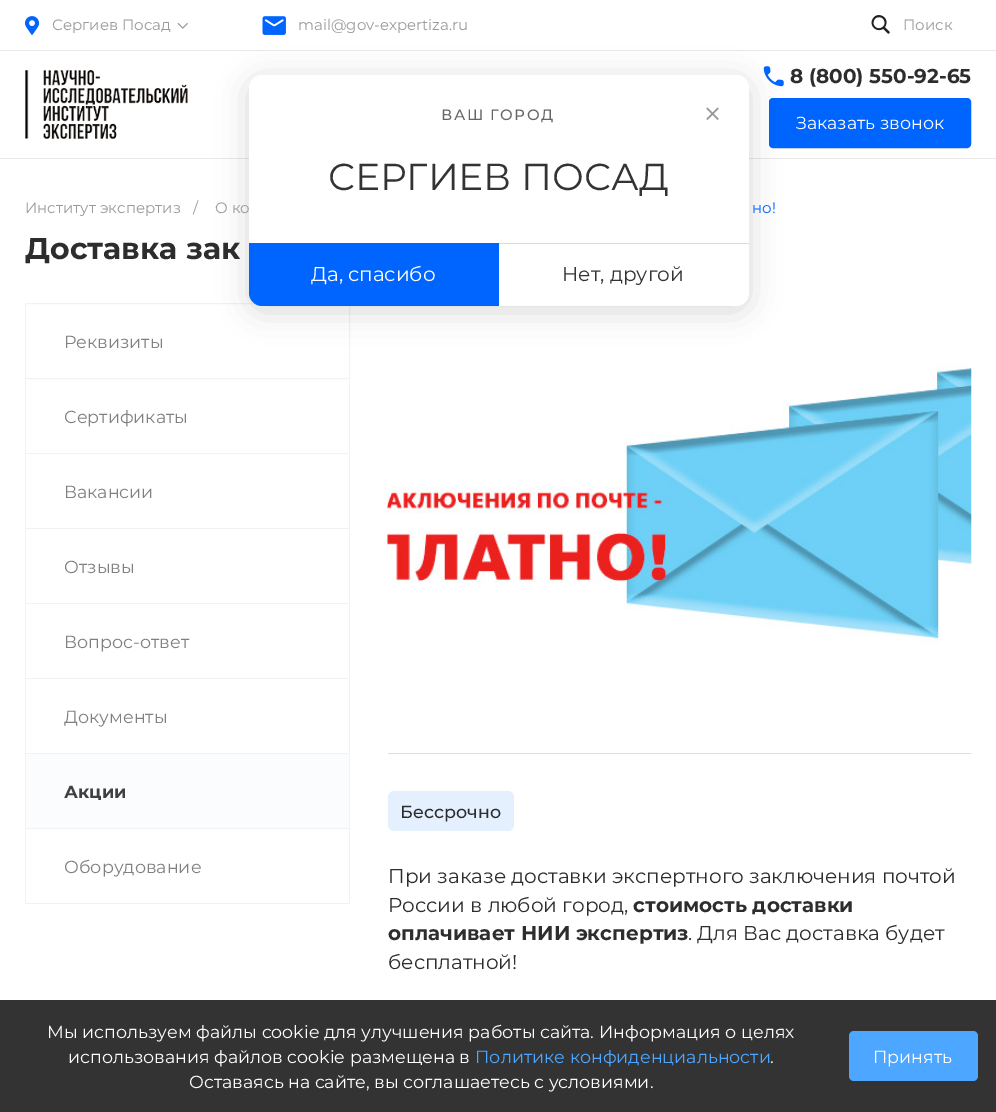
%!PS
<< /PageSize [996 1112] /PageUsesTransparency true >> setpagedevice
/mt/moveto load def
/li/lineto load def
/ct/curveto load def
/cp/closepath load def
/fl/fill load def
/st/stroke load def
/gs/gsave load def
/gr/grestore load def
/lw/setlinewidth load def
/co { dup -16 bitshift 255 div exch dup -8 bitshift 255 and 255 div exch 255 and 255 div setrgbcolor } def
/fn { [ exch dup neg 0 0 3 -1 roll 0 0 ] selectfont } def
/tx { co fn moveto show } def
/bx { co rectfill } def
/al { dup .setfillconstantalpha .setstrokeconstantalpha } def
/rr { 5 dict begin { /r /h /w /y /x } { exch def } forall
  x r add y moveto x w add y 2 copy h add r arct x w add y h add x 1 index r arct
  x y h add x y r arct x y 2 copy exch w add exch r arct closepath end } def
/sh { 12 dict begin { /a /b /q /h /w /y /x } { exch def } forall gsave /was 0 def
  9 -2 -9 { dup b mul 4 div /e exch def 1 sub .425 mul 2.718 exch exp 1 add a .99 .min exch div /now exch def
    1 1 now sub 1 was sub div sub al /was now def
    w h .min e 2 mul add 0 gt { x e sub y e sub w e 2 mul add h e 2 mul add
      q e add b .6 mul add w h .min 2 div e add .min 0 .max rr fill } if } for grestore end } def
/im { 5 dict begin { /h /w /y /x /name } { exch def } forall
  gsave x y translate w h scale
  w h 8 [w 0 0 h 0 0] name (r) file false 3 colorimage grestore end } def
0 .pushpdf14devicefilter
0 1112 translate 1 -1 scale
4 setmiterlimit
0 0 996 1112 16#FFFFFF bx
0 50 996 1 16#E8E8E8 bx
(media/1.raw) 262 16 24 19 im
(media/2.raw) 25 16 15 19 im
(media/3.raw) 177 23 11 6 im
0 158 996 1 16#E8E8E8 bx
(media/7.raw) 763 66 21 21 im
16#0065FF co
770.5 99.5 199 47 2.5 rr gs fl gr
3 lw
st
16#F2F2F2 co
1 lw
25.5 303.5 324 75 rectstroke
16#000000 co
249 80 500 231 13 15.5 .15 sh
16#FFFFFF co
249 75 500 231 13 rr fl
(media/4.raw) 706 107 13 13 im
499 243 250 1 16#DCDCDC bx
16#0065FF co
249 243 mt 499 243 li 499 306 li 262 306 li 255 306 249 300 249 293 ct cp fl
(media/5.raw) 871 15 19 19 im
(media/6.raw) 25 70 163 69 im
349 379 1 525 16#F2F2F2 bx
25 453 325 1 16#F2F2F2 bx
25 379 1 75 16#F2F2F2 bx
25 528 325 1 16#F2F2F2 bx
25 454 1 75 16#F2F2F2 bx
25 603 325 1 16#F2F2F2 bx
25 529 1 75 16#F2F2F2 bx
25 678 325 1 16#F2F2F2 bx
25 604 1 75 16#F2F2F2 bx
25 753 325 1 16#F2F2F2 bx
25 679 1 75 16#F2F2F2 bx
26 754 323 74 16#FBFCFD bx
25 828 325 1 16#F2F2F2 bx
25 754 1 75 16#F2F2F2 bx
25 903 325 1 16#F2F2F2 bx
25 829 1 75 16#F2F2F2 bx
(media/8.raw) 387 364 585 280 im
388 753 583 1 16#DDDDDD bx
16#E5F0FF co
388 791 126 40 6 rr fl
0 1000 996 112 16#333333 bx
16#4DA6FF co
849 1031 129 50 5 rr fl
(mail@gov-expertiza.ru) 298 30 /Montserrat-Regular 15 16#9A9A9A tx
(Сергиев Посад) 52 30 /Montserrat-Regular 15 16#9A9A9A tx
/Montserrat-Medium 15 fn
16#666666 co
441 120 mt 1.5 0 (ВАШ ГОРОД) ashow
(СЕРГИЕВ ПОСАД) 328 190 /Montserrat-Regular 37.5 16#333333 tx
(Да, спасибо) 311 281 /Montserrat-Regular 20 16#FFFFFF tx
(Нет, другой) 562 281 /Montserrat-Regular 20 16#333333 tx
(Поиск) 903 30 /Montserrat-Regular 15 16#9A9A9A tx
(8 \(800\) 550-92-65) 790 83 /Montserrat-Bold 20 16#2D2D2D tx
(Заказать звонок) 796 129 /Montserrat-Regular 17.5 16#FFFFFF tx
(Институт экспертиз) 25 213 /Montserrat-Regular 15 16#9A9A9A tx
(/) 193 213 /Montserrat-Regular 15 16#9A9A9A tx
(О ко) 215 213 /Montserrat-Regular 15 16#9A9A9A tx
(но!) 752 213 /Montserrat-Regular 15 16#0065FF tx
(Доставка зак) 25 259 /Montserrat-Bold 30 16#2D2D2D tx
(Реквизиты) 64 348 /Montserrat-Regular 17.5 16#808080 tx
(Сертификаты) 64 423 /Montserrat-Regular 17.5 16#808080 tx
(Вакансии) 64 498 /Montserrat-Regular 17.5 16#808080 tx
(Отзывы) 64 573 /Montserrat-Regular 17.5 16#808080 tx
(Вопрос-ответ) 64 648 /Montserrat-Regular 17.5 16#808080 tx
(Документы) 64 723 /Montserrat-Regular 17.5 16#808080 tx
(Акции) 64 798 /Montserrat-Bold 17.5 16#404040 tx
(Оборудование) 64 873 /Montserrat-Regular 17.5 16#808080 tx
(Бессрочно) 400 818 /Montserrat-Medium 17.5 16#2D2D2D tx
(При заказе доставки экспертного заключения почтой) 388 883 /Montserrat-Regular 20 16#2D2D2D tx
(России в любой город,) 388 912 /Montserrat-Regular 20 16#2D2D2D tx
(стоимость доставки) 633 912 /Montserrat-Bold 20 16#2D2D2D tx
(оплачивает НИИ экспертиз) 388 940 /Montserrat-Bold 20 16#2D2D2D tx
(. Для Вас доставка будет) 688 940 /Montserrat-Regular 20 16#2D2D2D tx
(бесплатной!) 388 969 /Montserrat-Regular 20 16#2D2D2D tx
(Мы используем файлы cookie для улучшения работы сайта. Информация о целях) 47 1038 /Montserrat-Regular 17.5 16#FFFFFF tx
(использования файлов cookie размещена в) 68 1063 /Montserrat-Regular 17.5 16#FFFFFF tx
(Политике конфиденциальности) 475 1063 /Montserrat-Regular 17.5 16#4DA6FF tx
(.) 770 1063 /Montserrat-Regular 17.5 16#FFFFFF tx
(Оставаясь на сайте, вы соглашаетесь с условиями.) 189 1088 /Montserrat-Regular 17.5 16#FFFFFF tx
(Принять) 873 1063 /Montserrat-Regular 17.5 16#FFFFFF tx
.poppdf14devicefilter showpage
